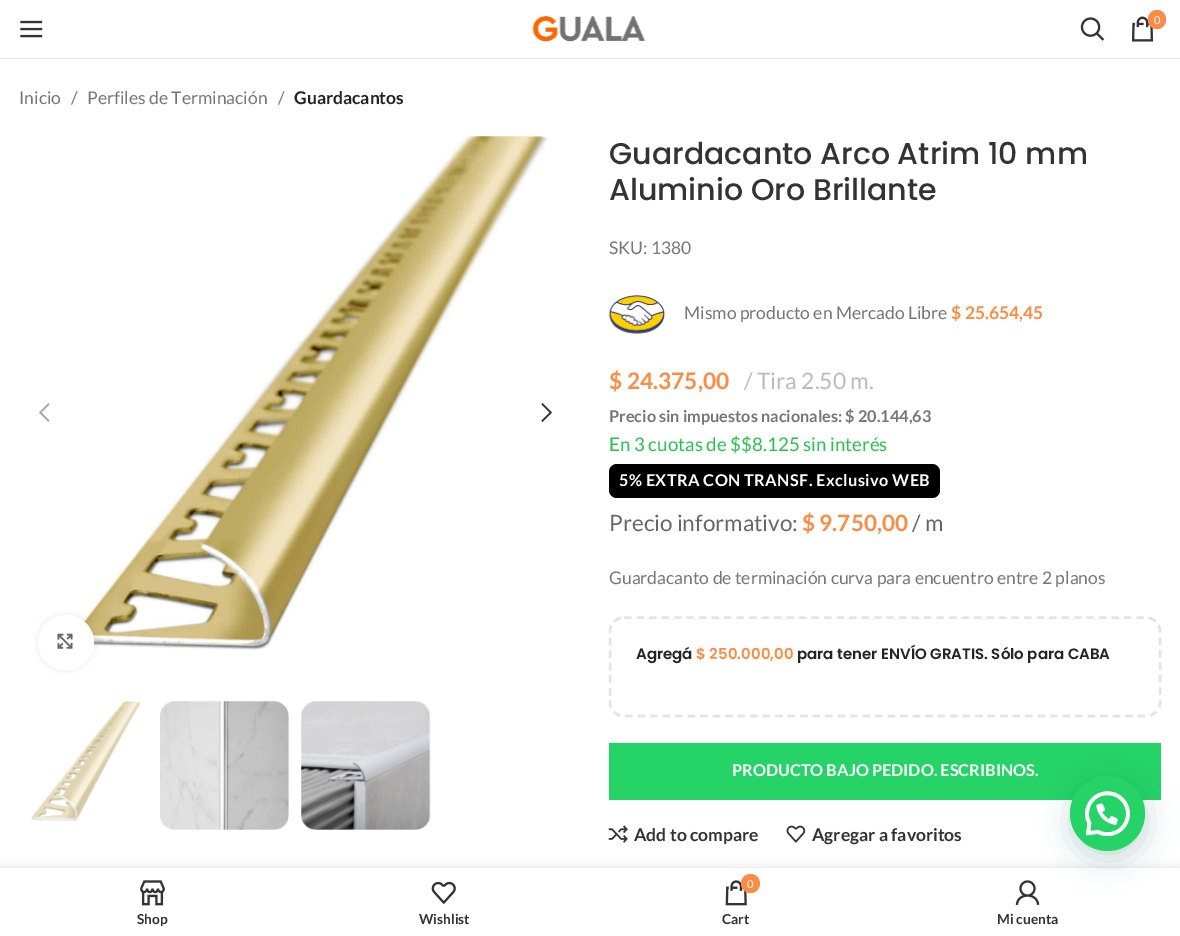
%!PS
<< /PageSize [1180 936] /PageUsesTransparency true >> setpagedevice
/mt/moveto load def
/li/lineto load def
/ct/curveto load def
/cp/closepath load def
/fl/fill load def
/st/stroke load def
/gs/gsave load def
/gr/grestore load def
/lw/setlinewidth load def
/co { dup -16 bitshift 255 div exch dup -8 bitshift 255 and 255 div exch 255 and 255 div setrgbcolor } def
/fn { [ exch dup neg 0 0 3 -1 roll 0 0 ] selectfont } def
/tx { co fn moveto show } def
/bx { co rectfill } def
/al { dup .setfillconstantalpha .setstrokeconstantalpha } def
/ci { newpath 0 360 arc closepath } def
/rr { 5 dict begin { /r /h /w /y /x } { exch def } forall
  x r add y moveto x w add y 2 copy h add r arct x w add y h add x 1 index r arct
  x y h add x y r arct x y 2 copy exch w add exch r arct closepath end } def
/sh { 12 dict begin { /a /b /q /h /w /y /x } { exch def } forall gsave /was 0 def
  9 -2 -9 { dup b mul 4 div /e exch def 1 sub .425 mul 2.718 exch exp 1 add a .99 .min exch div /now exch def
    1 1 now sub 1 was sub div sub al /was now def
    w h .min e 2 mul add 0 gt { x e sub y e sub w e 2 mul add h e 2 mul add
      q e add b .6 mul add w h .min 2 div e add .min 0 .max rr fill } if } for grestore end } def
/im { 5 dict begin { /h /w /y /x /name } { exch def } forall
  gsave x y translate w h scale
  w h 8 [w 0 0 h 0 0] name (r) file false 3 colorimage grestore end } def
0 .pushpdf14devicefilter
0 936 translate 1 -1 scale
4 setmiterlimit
0 0 1180 936 16#FFFFFF bx
0 58 1180 1 16#E6E6E6 bx
(media/1.raw) 20 20 23 18 im
(media/2.raw) 532 16 114 26 im
(media/3.raw) 1080 17 25 24 im
(media/4.raw) 1131 16 23 26 im
16#FC8C46 co
1148 10 18 19 9 rr fl
(media/5.raw) 70 136 478 515 im
16#A5A5A5 co
49.5 404.5 mt 48.5 403 li 39 412.5 li 48.5 422 li 49.5 420.5 li 41.5 412.5 li cp fl
16#333333 co
541.5 404.5 mt 549.5 412.5 li 541.5 420.5 li 542.5 422 li 552 412.5 li 542.5 403 li cp fl
16#000000 co
38 615 56 55 27.5 3 .08 sh
16#FFFFFF co
38 615 56 55 27.5 rr fl
(media/6.raw) 57 633 16 16 im
(media/7.raw) 31 701 110 121 im
(media/8.raw) 160 701 129 129 im
(media/9.raw) 301 701 130 129 im
(media/10.raw) 608 295 57 39 im
16#000000 co
609 464 331 34 8 rr fl
16#E4E4E4 co
2.5 lw
[7.5 5] 0 setdash
624 617.5 mt 1146 617.5 li 1154 617.5 1160 623.5 1160 631 ct 1160 702.5 li 1160 710 1154 716 1146 716 ct 624 716 li 616 716 610 710 610 702.5 ct 610 631 li 610 623.5 616 617.5 624 617.5 ct cp st
609 743 552 57 16#25D366 bx
(media/11.raw) 608 825 20 18 im
(media/12.raw) 786 825 20 18 im
16#000000 co
0 868 1180 68 0 5.5 .12 sh
0 868 1180 68 16#FFFFFF bx
(media/13.raw) 140 880 25 26 im
(media/14.raw) 431 881 25 23 im
(media/15.raw) 725 880 22 26 im
16#FC8C46 co
750.5 883.5 9.5 ci fl
(media/16.raw) 1015 880 25 25 im
16#075E54 co
1071 784 75 75 37.5 15 .24 sh
16#25D366 co
1107.5 813.5 37.5 ci fl
(media/17.raw) 1085 791 45 45 im
(0) 1154 24 /Lato-Regular 11 16#FFFFFF tx
(Inicio) 19 104 /Lato-Regular 17.5 16#767676 tx
(/) 71 104 /Lato-Regular 17.5 16#767676 tx
(Perfiles de Terminación) 87 104 /Lato-Regular 17.5 16#767676 tx
(/) 278 104 /Lato-Regular 17.5 16#767676 tx
(Guardacantos) 294 104 /Lato-Bold 17.5 16#242424 tx
(Guardacanto Arco Atrim 10 mm) 609 164 /Poppins-Medium 30 16#333333 tx
(Aluminio Oro Brillante) 609 200 /Poppins-Medium 30 16#333333 tx
(SKU: 1380) 609 254 /Lato-Regular 17.5 16#767676 tx
(Mismo producto en Mercado Libre) 684 319 /Lato-Regular 17.5 16#767676 tx
($ 25.654,45) 951 319 /Lato-Bold 17.5 16#FC8C46 tx
($ 24.375,00) 609 389 /Lato-Bold 22.75 16#FC8C46 tx
(/) 744 389 /Lato-Regular 22.75 16#BBBBBB tx
(Tira 2.50 m.) 757 389 /Lato-Regular 22.75 16#BBBBBB tx
(Precio sin impuestos nacionales: $ 20.144,63) 609 422 /Lato-Bold 16.25 16#767676 tx
(En 3 cuotas de $$8.125 sin interés) 609 451 /Lato-Regular 18.75 16#2BBF54 tx
/Lato-Bold 16.25 fn
16#FFFFFF co
619 486 mt .4 0 (5% EXTRA CON TRANSF. Exclusivo WEB) ashow
(Precio informativo:) 609 531 /Lato-Regular 22.5 16#666666 tx
($ 9.750,00) 802 531 /Lato-Bold 22.5 16#FC8C46 tx
(/ m) 912 531 /Lato-Regular 22.5 16#666666 tx
(Guardacanto de terminación curva para encuentro entre 2 planos) 609 584 /Lato-Regular 17.5 16#767676 tx
(Agregá) 636 659 /Poppins-SemiBold 15 16#242424 tx
($ 250.000,00) 696 659 /Poppins-SemiBold 15 16#FC8C46 tx
(para tener ENVÍO GRATIS. Sólo para CABA) 797 659 /Poppins-SemiBold 15 16#242424 tx
(PRODUCTO BAJO PEDIDO. ESCRIBINOS.) 732 776 /Lato-Bold 16.25 16#FFFFFF tx
(Add to compare) 634 841 /Lato-Bold 17.5 16#333333 tx
(Agregar a favoritos) 812 841 /Lato-Bold 17.5 16#333333 tx
gs
19 910 267 16 rectclip
(Shop) 137 924 /Lato-Bold 13.75 16#333333 tx
gr
(Wishlist) 419 924 /Lato-Bold 13.75 16#333333 tx
(0) 747 888 /Lato-Regular 11 16#FFFFFF tx
(Cart) 722 924 /Lato-Bold 13.75 16#333333 tx
(Mi cuenta) 997 924 /Lato-Bold 13.75 16#333333 tx
.poppdf14devicefilter showpage
